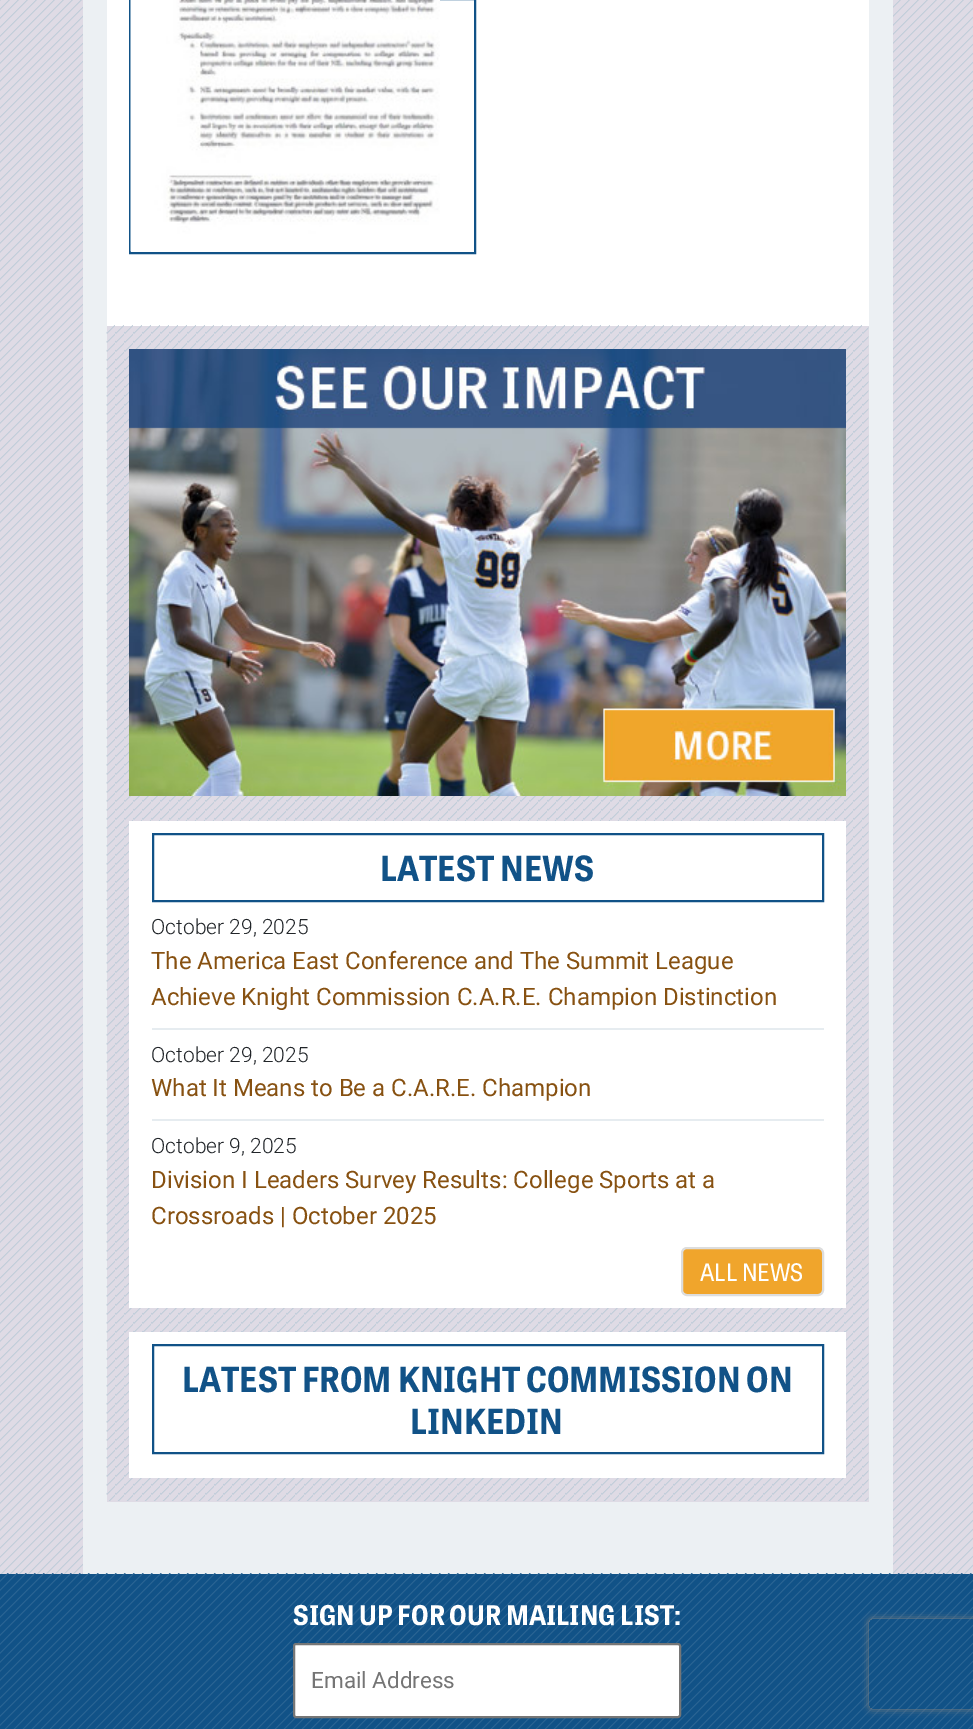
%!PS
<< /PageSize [973 1729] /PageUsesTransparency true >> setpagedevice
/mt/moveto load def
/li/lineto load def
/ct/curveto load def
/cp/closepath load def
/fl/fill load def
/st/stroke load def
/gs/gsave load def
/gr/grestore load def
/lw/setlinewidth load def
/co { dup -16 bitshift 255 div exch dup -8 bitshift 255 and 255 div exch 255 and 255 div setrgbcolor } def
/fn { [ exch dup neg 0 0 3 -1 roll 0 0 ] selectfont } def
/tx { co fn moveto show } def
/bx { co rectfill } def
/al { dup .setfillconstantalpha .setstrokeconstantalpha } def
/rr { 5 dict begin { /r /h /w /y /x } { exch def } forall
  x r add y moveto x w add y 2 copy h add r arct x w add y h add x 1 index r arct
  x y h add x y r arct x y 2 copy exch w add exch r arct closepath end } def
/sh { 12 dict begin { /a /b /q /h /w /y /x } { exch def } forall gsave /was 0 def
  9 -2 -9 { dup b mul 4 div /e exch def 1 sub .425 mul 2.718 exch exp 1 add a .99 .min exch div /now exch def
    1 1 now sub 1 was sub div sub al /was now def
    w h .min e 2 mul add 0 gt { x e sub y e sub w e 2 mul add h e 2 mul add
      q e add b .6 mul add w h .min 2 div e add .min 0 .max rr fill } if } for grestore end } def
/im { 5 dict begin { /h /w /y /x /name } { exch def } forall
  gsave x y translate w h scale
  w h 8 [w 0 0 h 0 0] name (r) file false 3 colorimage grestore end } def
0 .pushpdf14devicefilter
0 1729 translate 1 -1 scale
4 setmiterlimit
0 0 973 1729 16#DFDBE5 bx
(media/1.raw) 0 0 973 1574 im
107 0 762 326 16#FFFFFF bx
869 0 24 1502 16#ECF0F3 bx
107 1502 786 72 16#ECF0F3 bx
83 0 24 1574 16#ECF0F3 bx
16#115287 co
2 lw
130 -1 345 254 rectstroke
(media/2.raw) 130 0 310 252 im
107 326 762 1176 16#DFDBE5 bx
(media/3.raw) 106 325 763 1176 im
(media/4.raw) 129 349 717 447 im
129 821 717 487 16#FFFFFF bx
16#115287 co
153 834 670 67 rectstroke
152 1028 672 2 16#E6ECF0 bx
152 1119 672 2 16#E6ECF0 bx
16#F0A52C co
682 1248 141 47 5 rr gs fl gr
16#DDDDDD co
st
129 1332 717 146 16#FFFFFF bx
16#115287 co
153 1345 670 108 rectstroke
0 1574 973 155 16#115287 bx
(media/5.raw) 0 1573 973 156 im
16#FFFFFF co
294 1644 386 73 2 rr gs fl gr
16#767676 co
st
gs
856 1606 mt 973 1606 li 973 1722 li 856 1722 li cp 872 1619 mt 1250 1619 li 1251.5 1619 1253 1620.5 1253 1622 ct 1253 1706 li 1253 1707.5 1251.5 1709 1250 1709 ct 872 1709 li 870.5 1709 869 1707.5 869 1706 ct 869 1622 li 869 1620.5 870.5 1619 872 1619 ct cp eoclip newpath
16#808080 co
869 1619 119 90 3 4 1 sh
gr
(LATEST NEWS) 380 881 /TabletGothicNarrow-Bold 34.5 16#115287 tx
(October 29, 2025) 151 934 /Roboto-Light 21 16#212529 tx
(The America East Conference and The Summit League) 151 969 /Roboto-Regular 24 16#875111 tx
(Achieve Knight Commission C.A.R.E. Champion Distinction) 151 1005 /Roboto-Regular 24 16#875111 tx
(October 29, 2025) 151 1062 /Roboto-Light 21 16#212529 tx
(What It Means to Be a C.A.R.E. Champion) 151 1096 /Roboto-Regular 24 16#875111 tx
(October 9, 2025) 151 1153 /Roboto-Light 21 16#212529 tx
(Division I Leaders Survey Results: College Sports at a) 151 1188 /Roboto-Regular 24 16#875111 tx
(Crossroads | October 2025) 151 1224 /Roboto-Regular 24 16#875111 tx
(ALL NEWS) 700 1281 /TabletGothicNarrow-Regular 24 16#FFFFFF tx
(LATEST FROM KNIGHT COMMISSION ON) 182 1392 /TabletGothicNarrow-Bold 34.5 16#115287 tx
(LINKEDIN) 410 1434 /TabletGothicNarrow-Bold 34.5 16#115287 tx
(SIGN UP FOR OUR MAILING LIST:) 293 1625 /TabletGothicNarrow-Bold 27 16#FFFFFF tx
(Email Address) 311 1688 /Roboto-Regular 22.5 16#757575 tx
.poppdf14devicefilter showpage
